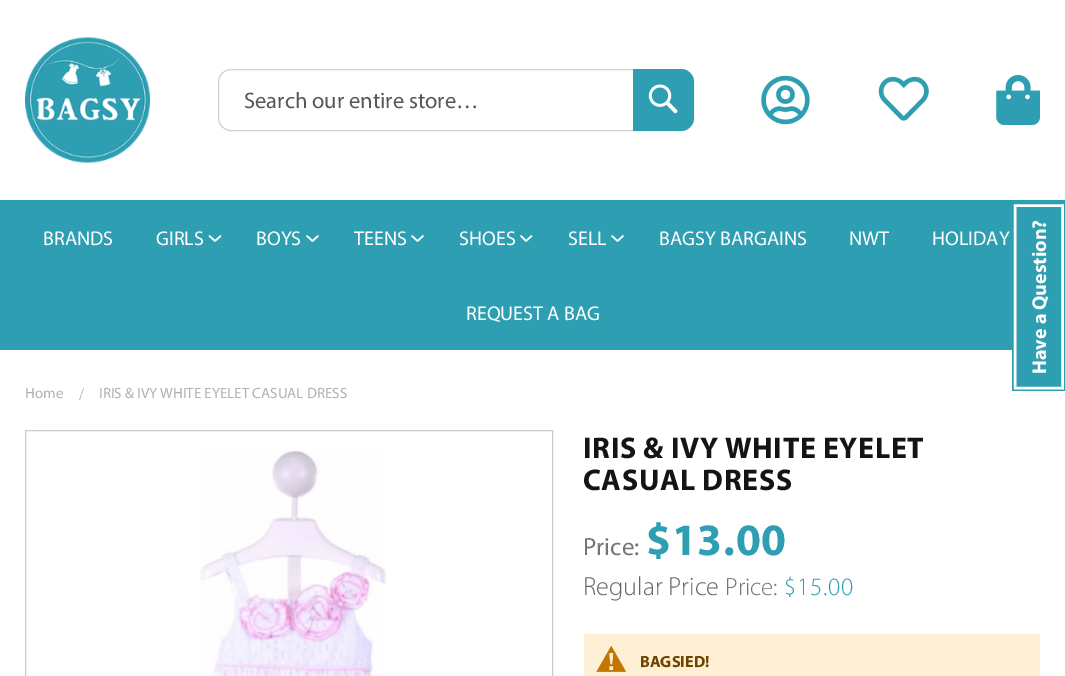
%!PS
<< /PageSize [1065 676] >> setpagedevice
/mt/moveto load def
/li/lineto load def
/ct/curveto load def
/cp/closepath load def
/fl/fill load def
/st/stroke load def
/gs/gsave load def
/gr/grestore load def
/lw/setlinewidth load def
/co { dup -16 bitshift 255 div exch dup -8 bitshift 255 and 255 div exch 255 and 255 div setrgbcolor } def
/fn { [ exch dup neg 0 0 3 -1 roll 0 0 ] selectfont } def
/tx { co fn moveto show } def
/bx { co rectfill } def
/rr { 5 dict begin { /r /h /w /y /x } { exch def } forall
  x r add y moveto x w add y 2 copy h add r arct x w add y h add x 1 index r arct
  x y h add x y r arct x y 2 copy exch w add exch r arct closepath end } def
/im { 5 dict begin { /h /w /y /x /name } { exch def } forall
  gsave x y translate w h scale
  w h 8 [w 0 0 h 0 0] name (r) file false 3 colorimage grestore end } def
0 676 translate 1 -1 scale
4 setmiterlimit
0 0 1065 676 16#FFFFFF bx
(media/1.raw) 25 37 125 126 im
16#D1D1D1 co
218.5 69.5 475 61 12.5 rr st
16#2E9EB2 co
633 69 mt 681 69 li 688 69 694 75 694 82 ct 694 118 li 694 125 688 131 681 131 ct 633 131 li cp fl
(media/2.raw) 648 84 30 30 im
(media/3.raw) 761 75 49 50 im
(media/4.raw) 878 76 51 45 im
(media/5.raw) 996 75 44 50 im
0 200 1065 150 16#2E9EB2 bx
16#FFFFFF co
1.6 lw
1 setlinecap
1 setlinejoin
220.5 236 mt 215 241 li 209.5 236 li st
318 236 mt 312.5 241 li 307 236 li st
423 236 mt 417.5 241 li 412 236 li st
531.5 236 mt 526 241 li 521 236 li st
623 236 mt 617.5 241 li 612 236 li st
1012 350 53 41 16#2E9EB2 bx
16#FFFFFF co
2.5 lw
0 setlinecap
0 setlinejoin
1015 388 mt 1015 205.5 li 1062.5 205.5 li 1062.5 388 li cp st
16#CCCCCC co
1 lw
25.5 430.5 527 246 rectstroke
(media/6.raw) 200 450 186 226 im
584 634 456 42 16#FDF0D5 bx
(media/7.raw) 596 646 31 26 im
(Search our entire store…) 244 108 /Myriad-Regular 22.5 16#575757 tx
(BRANDS) 43 245 /Myriad-Regular 20 16#FFFFFF tx
(GIRLS) 156 245 /Myriad-Regular 20 16#FFFFFF tx
(BOYS) 256 245 /Myriad-Regular 20 16#FFFFFF tx
(TEENS) 354 245 /Myriad-Regular 20 16#FFFFFF tx
(SHOES) 459 245 /Myriad-Regular 20 16#FFFFFF tx
(SELL) 568 245 /Myriad-Regular 20 16#FFFFFF tx
(BAGSY BARGAINS) 659 245 /Myriad-Regular 20 16#FFFFFF tx
(NWT) 849 245 /Myriad-Regular 20 16#FFFFFF tx
(HOLIDAY) 932 245 /Myriad-Regular 20 16#FFFFFF tx
(REQUEST A BAG) 466 320 /Myriad-Regular 20 16#FFFFFF tx
/Myriad-Bold 20 fn
gs 1046 374 translate -90 rotate 0 0 mt (Have a Question?) show gr
(Home) 25 398 /Myriad-Regular 15 16#B1B1B1 tx
(/) 79 400 /LiberationSerif-Regular 18 16#B1B1B1 tx
(IRIS & IVY WHITE EYELET CASUAL DRESS) 99 398 /Myriad-Regular 15 16#B1B1B1 tx
/Myriad-Bold 30 fn
16#141414 co
583 458 mt .6 0 (IRIS & IVY WHITE EYELET) ashow
583 490 mt .6 0 (CASUAL DRESS) ashow
(Price:) 583 555 /Myriad-Regular 25 16#747676 tx
/Myriad-Bold 45 fn
16#2E9EB2 co
646 555 mt .75 0 ($13.00) ashow
(Regular Price) 583 595 /Myriad-Light 26.25 16#666666 tx
(Price:) 725 595 /Myriad-Light 25 16#747676 tx
16#2E9EB2 co
784 595 mt .75 0 ($15.00) ashow
(BAGSIED!) 640 667 /Myriad-Bold 16.25 16#6F4400 tx
showpage
